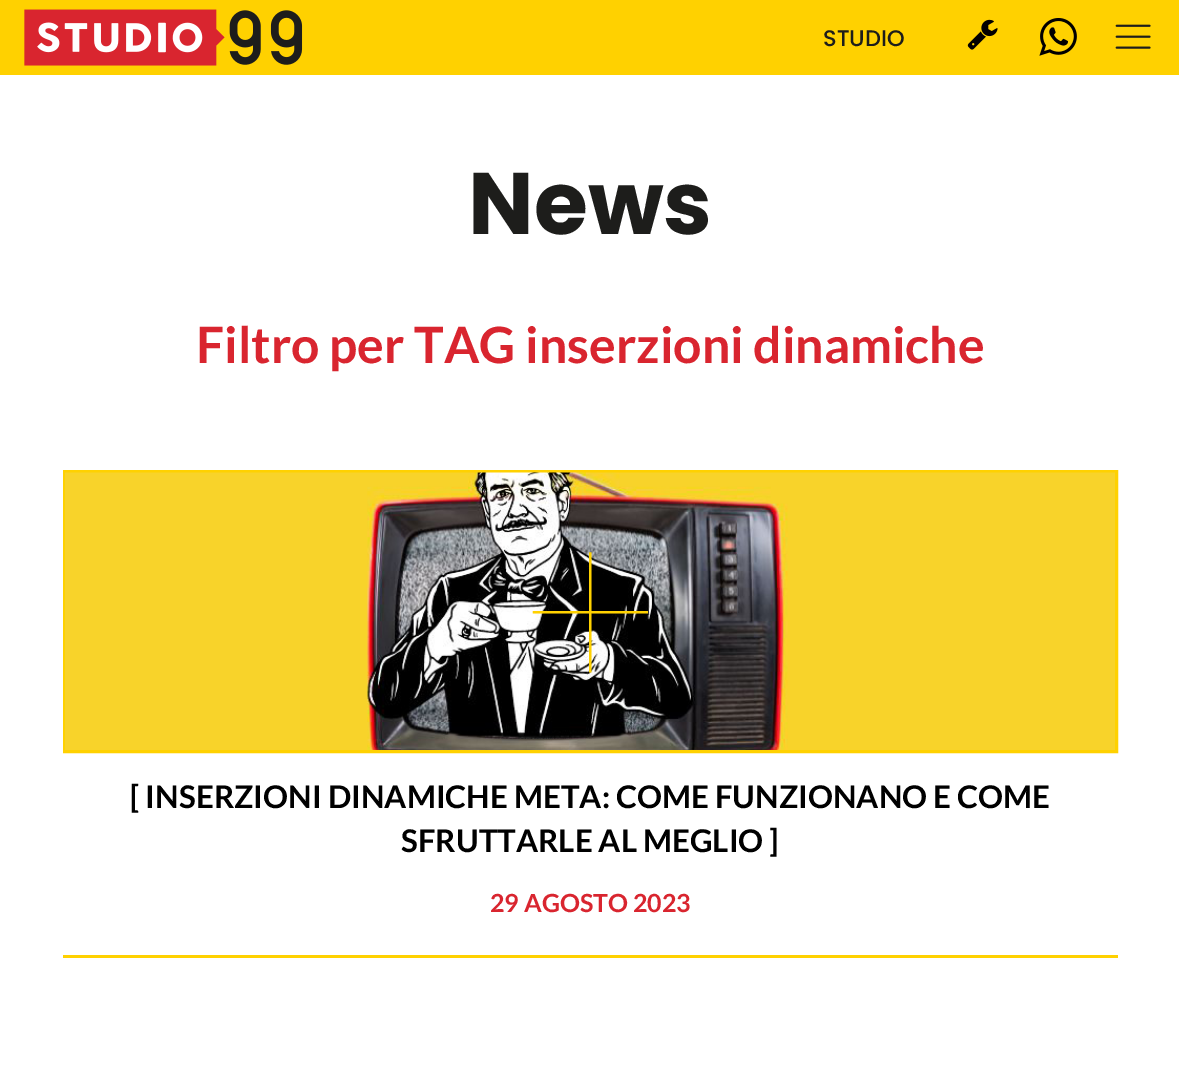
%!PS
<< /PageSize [1179 1069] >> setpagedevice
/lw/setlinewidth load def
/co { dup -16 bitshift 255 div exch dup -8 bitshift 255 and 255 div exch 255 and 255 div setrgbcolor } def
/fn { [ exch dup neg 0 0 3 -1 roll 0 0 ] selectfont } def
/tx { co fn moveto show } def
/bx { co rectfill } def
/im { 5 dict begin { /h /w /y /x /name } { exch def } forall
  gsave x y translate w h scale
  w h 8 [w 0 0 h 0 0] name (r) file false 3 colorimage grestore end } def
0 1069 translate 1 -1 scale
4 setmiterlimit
0 0 1179 1069 16#FFFFFF bx
0 0 1179 75 16#FFD100 bx
(media/1.raw) 24 9 279 57 im
(media/2.raw) 967 19 31 31 im
(media/3.raw) 1039 18 38 38 im
(media/4.raw) 1115 24 36 25 im
63 955 1055 3 16#FFD100 bx
3 lw
64.5 471.5 1052 280 rectstroke
(media/5.raw) 65 472 1050 278 im
(STUDIO) 823 46 /Poppins-Medium 22.5 16#1D1D1B tx
(News) 468 234 /Poppins-Bold 87.5 16#1D1D1B tx
(Filtro per TAG inserzioni dinamiche) 196 363 /Lato-Bold 50 16#D9252F tx
(+) 518 696 /Lato-Thin 250 16#FFD100 tx
([ INSERZIONI DINAMICHE META: COME FUNZIONANO E COME) 130 808 /Lato-Bold 31.25 16#000000 tx
(SFRUTTARLE AL MEGLIO ]) 401 852 /Lato-Bold 31.25 16#000000 tx
(29 AGOSTO 2023) 490 912 /Lato-Bold 25 16#D9252F tx
showpage
